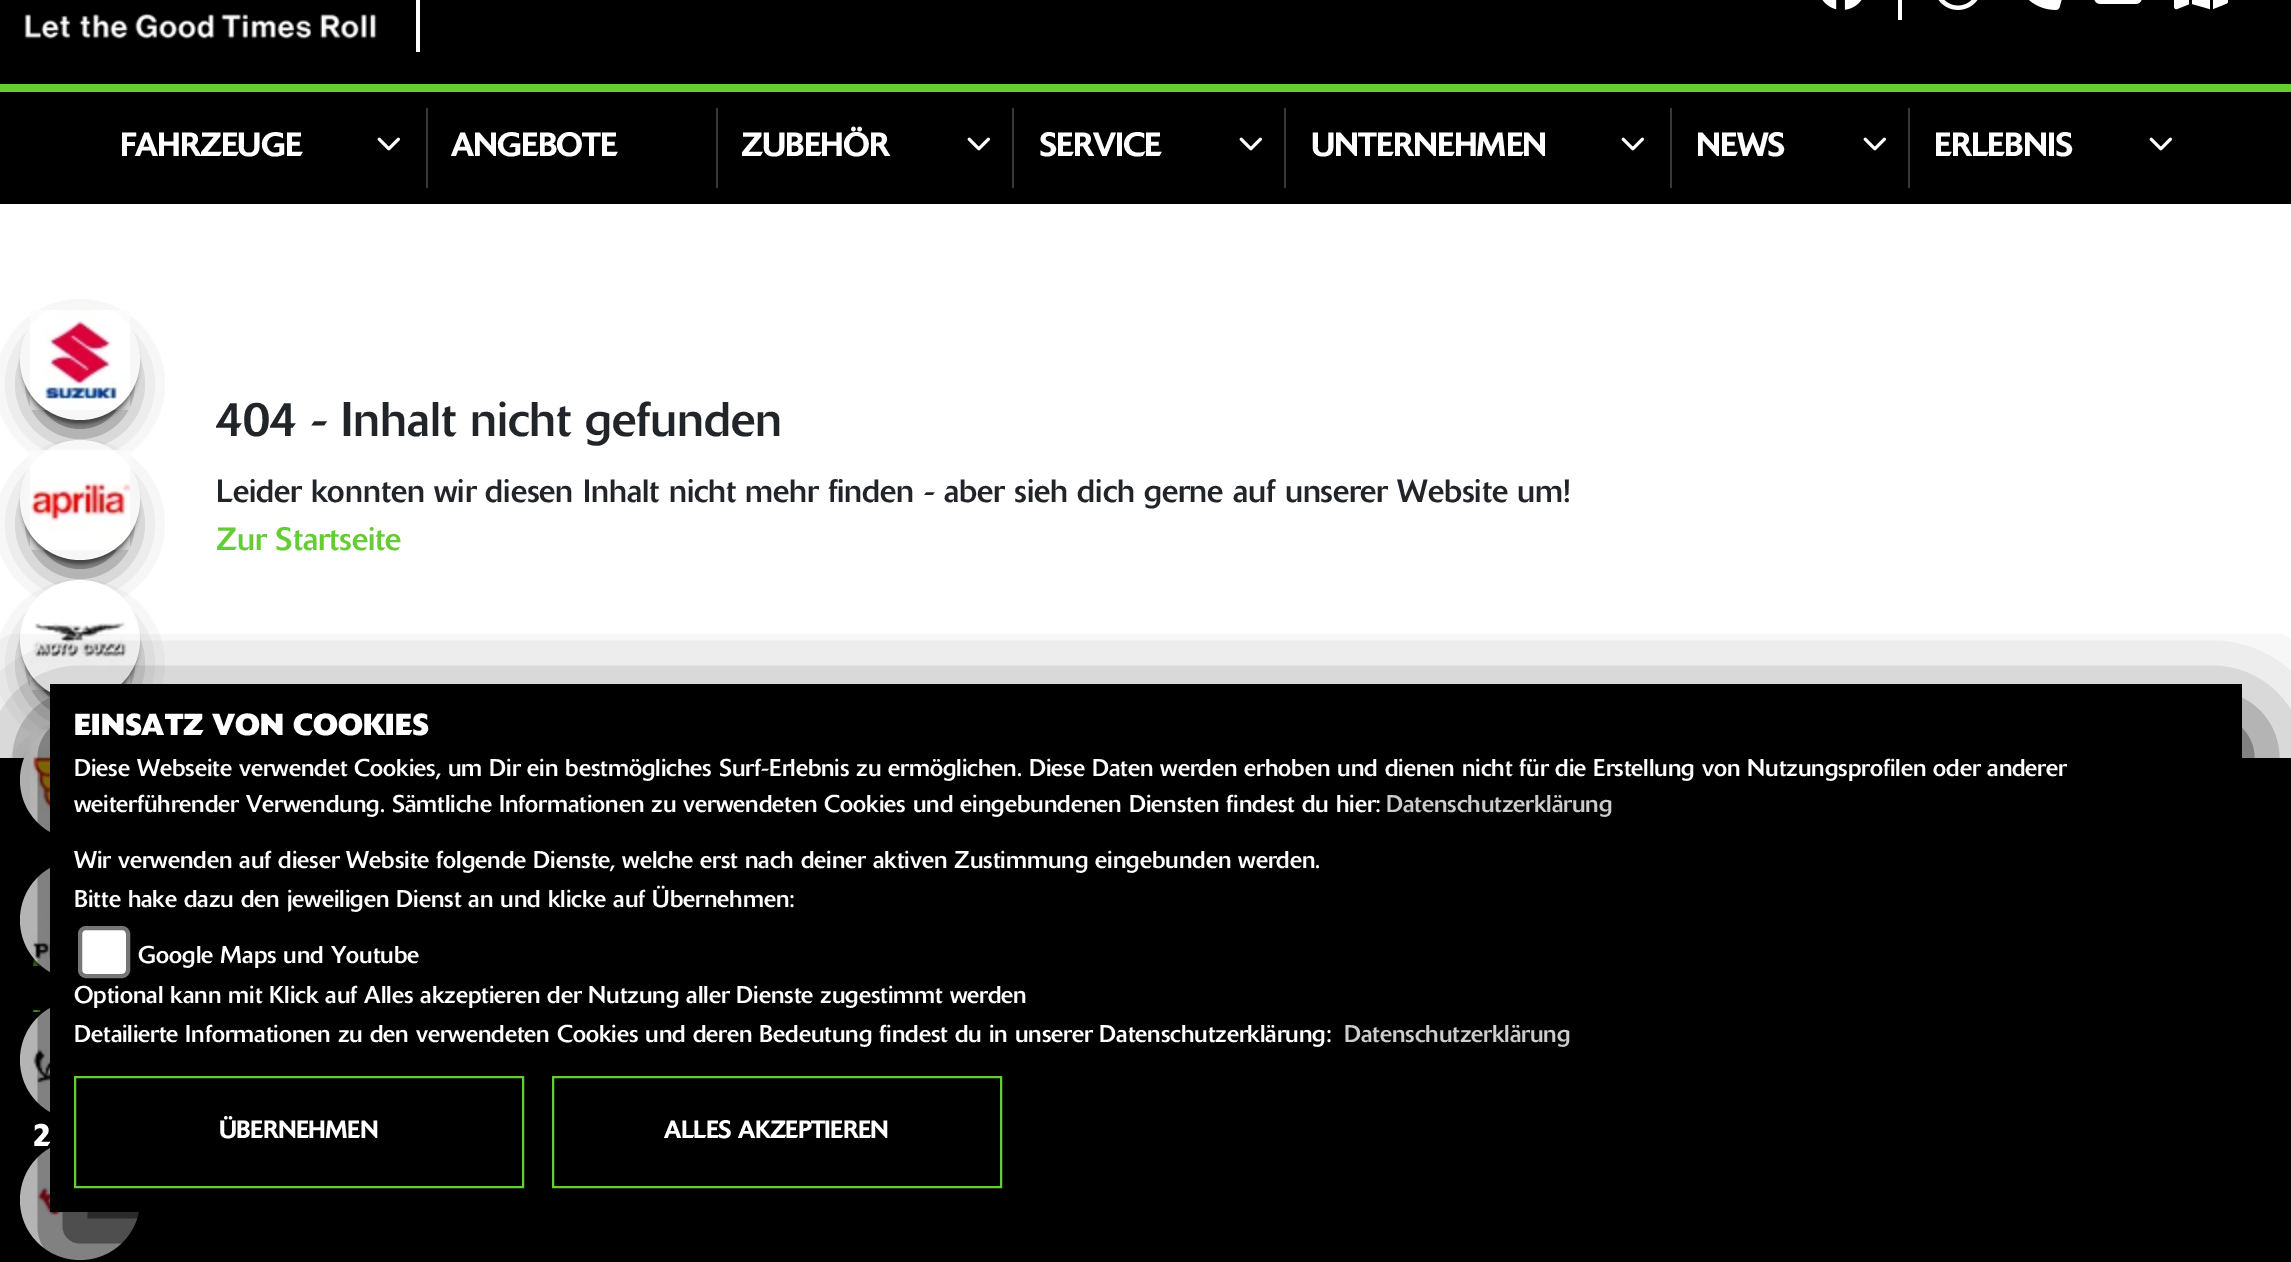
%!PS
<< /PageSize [2291 1262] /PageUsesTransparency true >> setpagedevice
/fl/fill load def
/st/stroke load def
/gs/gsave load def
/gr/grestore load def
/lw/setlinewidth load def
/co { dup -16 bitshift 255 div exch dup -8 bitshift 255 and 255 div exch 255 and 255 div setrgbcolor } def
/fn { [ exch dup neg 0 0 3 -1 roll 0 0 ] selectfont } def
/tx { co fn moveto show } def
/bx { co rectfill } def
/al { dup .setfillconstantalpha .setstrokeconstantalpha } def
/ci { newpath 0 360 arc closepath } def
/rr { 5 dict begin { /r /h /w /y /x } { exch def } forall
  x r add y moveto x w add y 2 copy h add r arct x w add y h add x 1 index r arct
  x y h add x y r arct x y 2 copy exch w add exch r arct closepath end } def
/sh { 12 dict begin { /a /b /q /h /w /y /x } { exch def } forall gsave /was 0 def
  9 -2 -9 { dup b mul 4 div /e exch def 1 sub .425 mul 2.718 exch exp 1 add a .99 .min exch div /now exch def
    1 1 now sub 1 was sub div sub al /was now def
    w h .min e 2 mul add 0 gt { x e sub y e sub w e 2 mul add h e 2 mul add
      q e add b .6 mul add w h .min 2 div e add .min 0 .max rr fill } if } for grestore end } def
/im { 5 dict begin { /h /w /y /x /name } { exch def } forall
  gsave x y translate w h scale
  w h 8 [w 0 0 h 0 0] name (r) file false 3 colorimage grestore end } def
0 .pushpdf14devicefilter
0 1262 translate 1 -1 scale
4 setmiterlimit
0 0 2291 1262 16#FFFFFF bx
0 0 2291 204 16#000000 bx
0 84 2291 8 16#66CC33 bx
(media/1.raw) 24 13 353 26 im
416 0 4 52 16#FFFFFF bx
(media/2.raw) 1822 0 40 10 im
1898 0 4 20 16#FFFFFF bx
(media/3.raw) 1938 0 40 10 im
(media/4.raw) 2029 0 33 10 im
(media/5.raw) 2094 0 48 4 im
(media/6.raw) 2174 0 54 10 im
426 108 2 80 16#393838 bx
(media/7.raw) 377 137 23 14 im
716 108 2 80 16#393838 bx
1012 108 2 80 16#393838 bx
(media/7.raw) 967 137 23 14 im
1284 108 2 80 16#393838 bx
(media/7.raw) 1239 137 23 14 im
1670 108 2 80 16#393838 bx
(media/7.raw) 1621 137 23 14 im
1908 108 2 80 16#393838 bx
(media/7.raw) 1863 137 23 14 im
(media/7.raw) 2149 137 23 14 im
16#000000 co
40 344 80 80 40 20 1 sh
22 308 116 116 58 2 .5 sh
16#F7F7F7 co
80 360 60 ci fl
(media/8.raw) 30 310 100 100 im
16#000000 co
40 484 80 80 40 20 1 sh
22 448 116 116 58 2 .5 sh
16#F7F7F7 co
80 500 60 ci fl
(media/9.raw) 30 450 100 100 im
0 758 2291 504 16#000000 bx
40 624 80 80 40 20 1 sh
22 588 116 116 58 2 .5 sh
16#FFFFFF co
80 640 60 ci fl
(media/10.raw) 30 621 100 69 im
16#000000 co
40 764 80 80 40 20 1 sh
16#F7F7F7 co
80 780 60 ci fl
(media/11.raw) 30 730 20 100 im
16#FFFFFF co
80 920 60 ci fl
(media/12.raw) 30 870 20 100 im
16#000000 co
40 1044 80 80 40 20 1 sh
16#FFFFFF co
80 1060 60 ci fl
(media/13.raw) 30 1010 20 100 im
80 1200 60 ci fl
(media/14.raw) 30 1150 100 100 im
gs
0 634 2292 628 rectclip
16#000000 co
50 728 2192 528 0 50 1 sh
gr
(FAHRZEUGE) 120 156 /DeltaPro-Bold 32 16#FFFFFF tx
(ANGEBOTE) 451 156 /DeltaPro-Bold 32 16#FFFFFF tx
(ZUBEHÖR) 741 156 /DeltaPro-Bold 32 16#FFFFFF tx
(SERVICE) 1039 156 /DeltaPro-Bold 32 16#FFFFFF tx
(UNTERNEHMEN) 1311 156 /DeltaPro-Bold 32 16#FFFFFF tx
(NEWS) 1696 156 /DeltaPro-Bold 32 16#FFFFFF tx
(ERLEBNIS) 1934 156 /DeltaPro-Bold 32 16#FFFFFF tx
(404 - Inhalt nicht gefunden) 216 436 /DeltaPro-Regular 48 16#212529 tx
(Leider konnten wir diesen Inhalt nicht mehr finden - aber sieh dich gerne auf unserer Website um!) 216 502 /DeltaPro-Regular 32 16#212529 tx
(Zur Startseite) 216 550 /DeltaPro-Regular 32 16#66CC33 tx
(2) 32 1146 /DeltaPro-Medium 32 16#FFFFFF tx
50 684 2192 528 16#000000 bx
(EINSATZ VON COOKIES) 74 735 /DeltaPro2-Bold 30 16#FFFFFF tx
(Diese Webseite verwendet Cookies, um Dir ein bestmögliches Surf-Erlebnis zu ermöglichen. Diese Daten werden erhoben und dienen nicht für die Erstellung von Nutzungsprofilen oder anderer) 74 776 /DeltaPro-Regular 24 16#FFFFFF tx
(weiterführender Verwendung. Sämtliche Informationen zu verwendeten Cookies und eingebundenen Diensten findest du hier:) 74 812 /DeltaPro-Regular 24 16#FFFFFF tx
(Datenschutzerklärung) 1386 812 /DeltaPro-Regular 24 16#CCCCCC tx
(Wir verwenden auf dieser Website folgende Dienste, welche erst nach deiner aktiven Zustimmung eingebunden werden.) 74 868 /DeltaPro-Regular 24 16#FFFFFF tx
(Bitte hake dazu den jeweiligen Dienst an und klicke auf Übernehmen:) 74 907 /DeltaPro-Regular 24 16#FFFFFF tx
80 928 48 48 6 rr gs fl gr
16#767676 co
4 lw
st
(Google Maps und Youtube) 138 963 /DeltaPro-Regular 24 16#FFFFFF tx
(Optional kann mit Klick auf Alles akzeptieren der Nutzung aller Dienste zugestimmt werden) 74 1003 /DeltaPro-Regular 24 16#FFFFFF tx
(Detailierte Informationen zu den verwendeten Cookies und deren Bedeutung findest du in unserer Datenschutzerklärung:) 74 1042 /DeltaPro-Regular 24 16#FFFFFF tx
(Datenschutzerklärung) 1344 1042 /DeltaPro-Regular 24 16#CCCCCC tx
16#66CC33 co
2 lw
75 1077 448 110 rectstroke
(ÜBERNEHMEN) 219 1138 /DeltaPro-Bold 24 16#FFFFFF tx
16#66CC33 co
553 1077 448 110 rectstroke
(ALLES AKZEPTIEREN) 664 1138 /DeltaPro-Bold 24 16#FFFFFF tx
.poppdf14devicefilter showpage
